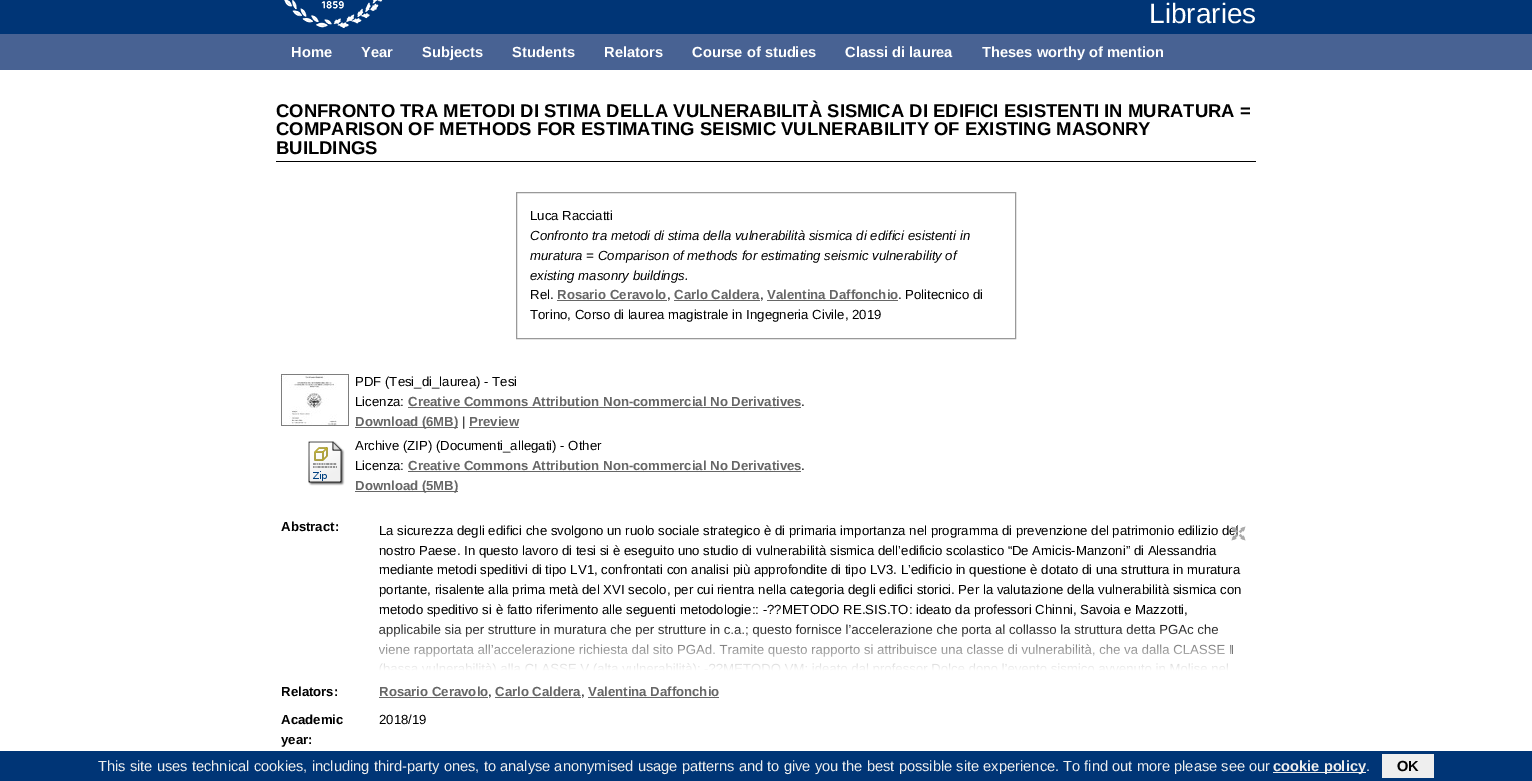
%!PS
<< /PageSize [1532 781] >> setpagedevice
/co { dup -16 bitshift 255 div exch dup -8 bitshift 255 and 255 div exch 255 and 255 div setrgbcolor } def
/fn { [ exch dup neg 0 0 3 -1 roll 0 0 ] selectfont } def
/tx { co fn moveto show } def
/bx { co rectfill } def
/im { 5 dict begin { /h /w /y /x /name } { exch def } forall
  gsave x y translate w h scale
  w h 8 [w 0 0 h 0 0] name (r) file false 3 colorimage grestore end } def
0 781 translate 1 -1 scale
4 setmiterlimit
0 0 1532 781 16#FFFFFF bx
0 0 1532 34 16#003576 bx
(media/1.raw) 284 0 99 28 im
0 34 1532 36 16#486293 bx
276 161 980 1 16#000000 bx
16#999999 co
516.5 192.5 499 146 rectstroke
557 300 110 1 16#666666 bx
674 300 86 1 16#666666 bx
767 300 131 1 16#666666 bx
(media/2.raw) 281 374 68 52 im
408 407 393 1 16#666666 bx
355 427 103 1 16#666666 bx
469 427 50 1 16#666666 bx
(media/3.raw) 308 441 37 45 im
408 471 393 1 16#666666 bx
355 491 103 1 16#666666 bx
379 697 109 1 16#666666 bx
495 697 86 1 16#666666 bx
588 697 131 1 16#666666 bx
0 751 1532 30 16#003576 bx
1273 772 93 1 16#EEEEEE bx
1382 754 52 24 16#EEEEEE bx
(Libraries) 1149 23 /LiberationSans-Regular 28 16#FFFFFF tx
(Home) 291 57 /LiberationSans-Bold 14.67 16#FFFFFF tx
(Year) 361 57 /LiberationSans-Bold 14.67 16#FFFFFF tx
(Subjects) 422 57 /LiberationSans-Bold 14.67 16#FFFFFF tx
(Students) 512 57 /LiberationSans-Bold 14.67 16#FFFFFF tx
(Relators) 604 57 /LiberationSans-Bold 14.67 16#FFFFFF tx
(Course of studies) 692 57 /LiberationSans-Bold 14.67 16#FFFFFF tx
(Classi di laurea) 845 57 /LiberationSans-Bold 14.67 16#FFFFFF tx
(Theses worthy of mention) 982 57 /LiberationSans-Bold 14.67 16#FFFFFF tx
(CONFRONTO TRA METODI DI STIMA DELLA VULNERABILITÀ SISMICA DI EDIFICI ESISTENTI IN MURATURA =) 276 117 /LiberationSans-Bold 18.48 16#000000 tx
(COMPARISON OF METHODS FOR ESTIMATING SEISMIC VULNERABILITY OF EXISTING MASONRY) 276 135 /LiberationSans-Bold 18.48 16#000000 tx
(BUILDINGS) 276 154 /LiberationSans-Bold 18.48 16#000000 tx
(Luca Racciatti) 530 220 /LiberationSans-Regular 13.2 16#000000 tx
(Confronto tra metodi di stima della vulnerabilità sismica di edifici esistenti in) 530 240 /LiberationSans-Italic 13.2 16#000000 tx
(muratura = Comparison of methods for estimating seismic vulnerability of) 530 260 /LiberationSans-Italic 13.2 16#000000 tx
(existing masonry buildings.) 530 280 /LiberationSans-Italic 13.2 16#000000 tx
(Rel.) 530 299 /LiberationSans-Regular 13.2 16#000000 tx
(Rosario Ceravolo) 557 299 /LiberationSans-Bold 13.2 16#666666 tx
(,) 667 299 /LiberationSans-Regular 13.2 16#000000 tx
(Carlo Caldera) 674 299 /LiberationSans-Bold 13.2 16#666666 tx
(,) 760 299 /LiberationSans-Regular 13.2 16#000000 tx
(Valentina Daffonchio) 767 299 /LiberationSans-Bold 13.2 16#666666 tx
(. Politecnico di) 898 299 /LiberationSans-Regular 13.2 16#000000 tx
(Torino, Corso di laurea magistrale in Ingegneria Civile, 2019) 530 319 /LiberationSans-Regular 13.2 16#000000 tx
(PDF \(Tesi_di_laurea\) - Tesi) 355 386 /LiberationSans-Regular 13.2 16#000000 tx
(Licenza:) 355 406 /LiberationSans-Regular 13.2 16#000000 tx
(Creative Commons Attribution Non-commercial No Derivatives) 408 406 /LiberationSans-Bold 13.2 16#666666 tx
(.) 801 406 /LiberationSans-Regular 13.2 16#000000 tx
(Download \(6MB\)) 355 426 /LiberationSans-Bold 13.2 16#666666 tx
(|) 462 426 /LiberationSans-Regular 13.2 16#000000 tx
(Preview) 469 426 /LiberationSans-Bold 13.2 16#666666 tx
(Archive \(ZIP\) \(Documenti_allegati\) - Other) 355 450 /LiberationSans-Regular 13.2 16#000000 tx
(Licenza:) 355 470 /LiberationSans-Regular 13.2 16#000000 tx
(Creative Commons Attribution Non-commercial No Derivatives) 408 470 /LiberationSans-Bold 13.2 16#666666 tx
(.) 801 470 /LiberationSans-Regular 13.2 16#000000 tx
(Download \(5MB\)) 355 490 /LiberationSans-Bold 13.2 16#666666 tx
(Abstract:) 281 531 /LiberationSans-Bold 13.2 16#000000 tx
(La sicurezza degli edifici che svolgono un ruolo sociale strategico è di primaria importanza nel programma di prevenzione del patrimonio edilizio del) 379 535 /LiberationSans-Regular 13.2 16#000000 tx
(nostro Paese. In questo lavoro di tesi si è eseguito uno studio di vulnerabilità sismica dell’edificio scolastico “De Amicis-Manzoni” di Alessandria) 379 555 /LiberationSans-Regular 13.2 16#000000 tx
(mediante metodi speditivi di tipo LV1, confrontati con analisi più approfondite di tipo LV3. L’edificio in questione è dotato di una struttura in muratura) 379 574 /LiberationSans-Regular 13.2 16#000000 tx
(portante, risalente alla prima metà del XVI secolo, per cui rientra nella categoria degli edifici storici. Per la valutazione della vulnerabilità sismica con) 379 594 /LiberationSans-Regular 13.2 16#000000 tx
(metodo speditivo si è fatto riferimento alle seguenti metodologie:: -??METODO RE.SIS.TO: ideato da professori Chinni, Savoia e Mazzotti,) 379 614 /LiberationSans-Regular 13.2 16#000000 tx
(applicabile sia per strutture in muratura che per strutture in c.a.; questo fornisce l’accelerazione che porta al collasso la struttura detta PGAc che) 379 634 /LiberationSans-Regular 13.2 16#000000 tx
(viene rapportata all’accelerazione richiesta dal sito PGAd. Tramite questo rapporto si attribuisce una classe di vulnerabilità, che va dalla CLASSE I) 379 654 /LiberationSans-Regular 13.2 16#000000 tx
(media/4.raw) 1231 526 15 15 im
(media/5.raw) 379 624 853 47 im
(Relators:) 281 696 /LiberationSans-Bold 13.2 16#000000 tx
(Rosario Ceravolo) 379 696 /LiberationSans-Bold 13.2 16#666666 tx
(,) 488 696 /LiberationSans-Regular 13.2 16#000000 tx
(Carlo Caldera) 495 696 /LiberationSans-Bold 13.2 16#666666 tx
(,) 581 696 /LiberationSans-Regular 13.2 16#000000 tx
(Valentina Daffonchio) 588 696 /LiberationSans-Bold 13.2 16#666666 tx
(Academic) 281 724 /LiberationSans-Bold 13.2 16#000000 tx
(year:) 281 744 /LiberationSans-Bold 13.2 16#000000 tx
(2018/19) 379 724 /LiberationSans-Regular 13.2 16#000000 tx
(This site uses technical cookies, including third-party ones, to analyse anonymised usage patterns and to give you the best possible site experience. To find out more please see our) 98 771 /LiberationSans-Regular 14.67 16#EEEEEE tx
(cookie policy) 1273 771 /LiberationSans-Bold 14.67 16#EEEEEE tx
(.) 1366 771 /LiberationSans-Regular 14.67 16#EEEEEE tx
(OK) 1397 771 /LiberationSans-Bold 14.67 16#000000 tx
showpage
